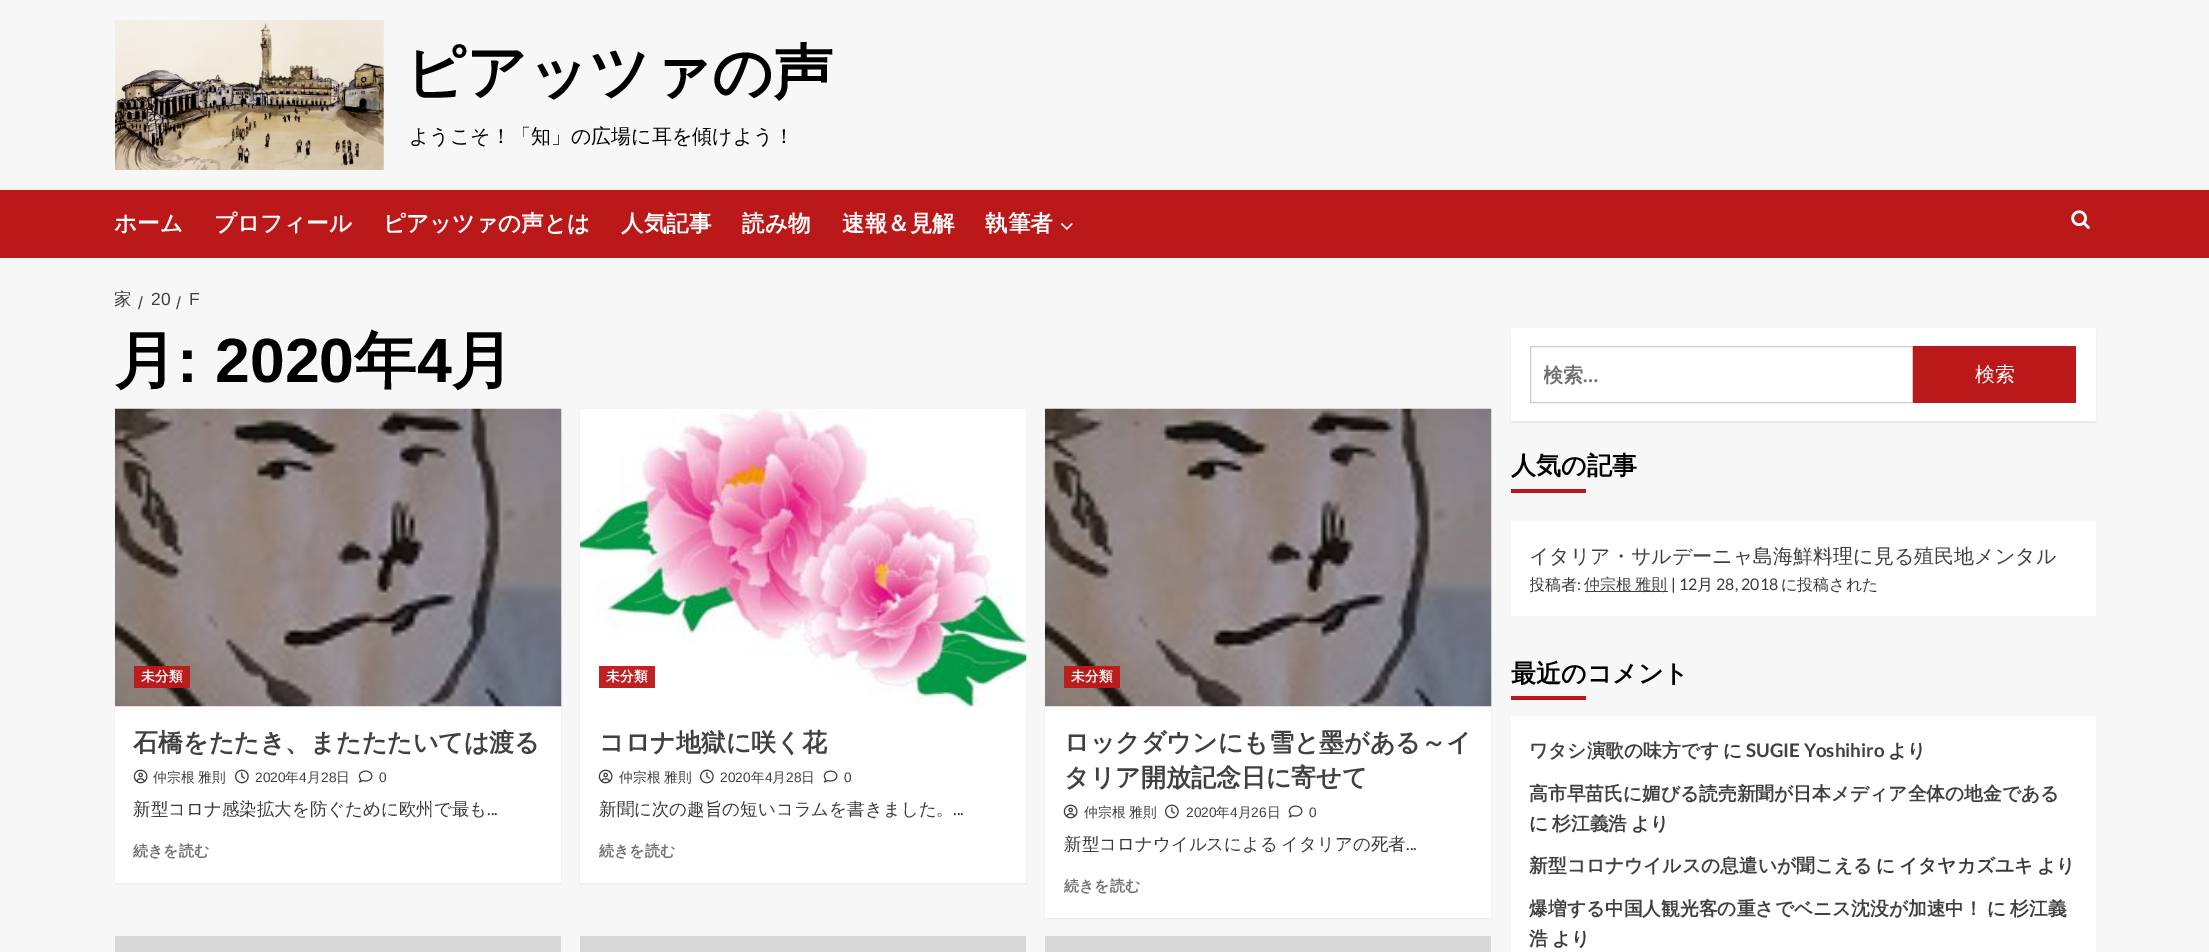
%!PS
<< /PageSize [2209 952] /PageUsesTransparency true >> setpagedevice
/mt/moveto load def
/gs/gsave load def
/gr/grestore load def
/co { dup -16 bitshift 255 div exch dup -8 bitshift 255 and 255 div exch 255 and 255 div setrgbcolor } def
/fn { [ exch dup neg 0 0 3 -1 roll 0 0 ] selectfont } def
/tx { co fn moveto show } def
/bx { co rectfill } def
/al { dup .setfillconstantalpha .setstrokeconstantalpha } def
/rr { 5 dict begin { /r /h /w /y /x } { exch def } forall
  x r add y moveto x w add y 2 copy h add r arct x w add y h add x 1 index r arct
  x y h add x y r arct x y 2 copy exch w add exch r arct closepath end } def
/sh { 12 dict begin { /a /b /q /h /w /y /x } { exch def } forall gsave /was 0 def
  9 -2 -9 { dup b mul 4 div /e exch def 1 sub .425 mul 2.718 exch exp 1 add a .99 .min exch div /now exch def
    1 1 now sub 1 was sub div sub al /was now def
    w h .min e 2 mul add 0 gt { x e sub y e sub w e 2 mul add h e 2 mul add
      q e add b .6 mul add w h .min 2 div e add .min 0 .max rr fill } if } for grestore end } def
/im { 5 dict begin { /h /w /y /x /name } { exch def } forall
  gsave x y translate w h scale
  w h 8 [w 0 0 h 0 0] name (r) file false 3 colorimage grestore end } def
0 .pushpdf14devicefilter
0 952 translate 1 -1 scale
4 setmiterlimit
0 0 2209 952 16#F7F7F7 bx
(media/1.raw) 115 20 269 150 im
0 190 2209 68 16#BB1919 bx
(media/2.raw) 1061 223 12 7 im
(media/3.raw) 2071 210 19 19 im
16#000000 co
115 410 446 474 0 1 .05 sh
115 706 446 177 16#FFFFFF bx
(media/4.raw) 115 408 447 299 im
0.96 al
134 666 56 22 16#BB1919 bx
1 al
(media/5.raw) 133 769 15 15 im
(media/6.raw) 235 769 14 15 im
(media/7.raw) 358 770 15 13 im
16#000000 co
580 410 446 474 0 1 .05 sh
580 706 446 177 16#FFFFFF bx
(media/8.raw) 580 409 447 298 im
599 666 56 22 16#BE2222 bx
(media/5.raw) 598 769 15 15 im
(media/6.raw) 700 769 14 15 im
(media/7.raw) 823 770 15 13 im
16#000000 co
1045 410 446 509 0 1 .05 sh
1045 706 446 212 16#FFFFFF bx
(media/9.raw) 1045 408 447 299 im
0.96 al
1064 666 56 22 16#BB1919 bx
1 al
(media/5.raw) 1063 804 15 15 im
(media/6.raw) 1165 804 14 15 im
(media/7.raw) 1288 805 15 13 im
115 936 446 16 16#D8D8D8 bx
580 936 446 16 16#D8D8D8 bx
1045 936 446 16 16#D8D8D8 bx
16#000000 co
1511 329 585 94 0 1 .05 sh
1511 328 585 93 16#FFFFFF bx
16#CCCCCC co
1530.5 346.5 382 56 rectstroke
1913 346 163 57 16#BB1919 bx
1511 489 75 4 16#BB1919 bx
1511 521 585 95 16#FFFFFF bx
1585 591 83 1 16#404040 bx
1511 696 75 4 16#BB1919 bx
1511 716 585 236 16#FFFFFF bx
(ピアッツァの声) 405 93 /WenQuanYiZenHei-Bold 60 16#000000 tx
(ようこそ！「知」の広場に耳を傾けよう！) 409 143 /WenQuanYiZenHei-Medium 20 16#000000 tx
(ホーム) 114 231 /WenQuanYiZenHei-Bold 22.5 16#FFFFFF tx
(プロフィール) 214 231 /WenQuanYiZenHei-Bold 22.5 16#FFFFFF tx
(ピアッツァの声とは) 383 231 /WenQuanYiZenHei-Bold 22.5 16#FFFFFF tx
(人気記事) 621 231 /WenQuanYiZenHei-Bold 22.5 16#FFFFFF tx
(読み物) 742 231 /WenQuanYiZenHei-Bold 22.5 16#FFFFFF tx
(速報＆見解) 842 231 /WenQuanYiZenHei-Bold 22.5 16#FFFFFF tx
(執筆者) 985 231 /WenQuanYiZenHei-Bold 22.5 16#FFFFFF tx
(家) 114 305 /WenQuanYiZenHei-Medium 17.5 16#404040 tx
(/) 138 309 /LiberationSans-Regular 17.5 16#404040 tx
(20) 151 305 /LiberationSans-Regular 17.5 16#404040 tx
(/) 176 309 /LiberationSans-Regular 17.5 16#404040 tx
(F) 189 305 /LiberationSans-Regular 17.5 16#404040 tx
(月) 114 382 /WenQuanYiZenHei-Bold 62.5 16#000000 tx
(: 2020) 177 382 /LiberationSans-Bold 62.5 16#000000 tx
(年) 354 382 /WenQuanYiZenHei-Bold 62.5 16#000000 tx
(4) 417 382 /LiberationSans-Bold 62.5 16#000000 tx
(月) 451 382 /WenQuanYiZenHei-Bold 62.5 16#000000 tx
(未分類) 141 681 /WenQuanYiZenHei-Bold 13.75 16#FCF6F6 tx
(石橋をたたき、またたたいては渡る) 133 751 /WenQuanYiZenHei-Bold 25 16#404040 tx
(仲宗根 雅則) 153 782 /WenQuanYiZenHei-Medium 13.75 16#404040 tx
(2020) 255 782 /LiberationSans-Regular 13.75 16#404040 tx
(年) 285 782 /WenQuanYiZenHei-Medium 13.75 16#404040 tx
(4) 299 782 /LiberationSans-Regular 13.75 16#404040 tx
(月) 307 782 /WenQuanYiZenHei-Medium 13.75 16#404040 tx
(28) 321 782 /LiberationSans-Regular 13.75 16#404040 tx
(日) 336 782 /WenQuanYiZenHei-Medium 13.75 16#404040 tx
(0) 379 782 /LiberationSans-Regular 13.75 16#404040 tx
(新型コロナ感染拡大を防ぐために欧州で最も) 133 815 /WenQuanYiZenHei-Medium 17.5 16#3A3A3A tx
(...) 487 815 /Lato-Regular 17.5 16#3A3A3A tx
(続きを読む) 133 856 /WenQuanYiZenHei-Bold 15 16#707070 tx
(未分類) 606 681 /WenQuanYiZenHei-Bold 13.75 16#FFFFFF tx
(コロナ地獄に咲く花) 599 751 /WenQuanYiZenHei-Bold 25 16#404040 tx
(仲宗根 雅則) 619 782 /WenQuanYiZenHei-Medium 13.75 16#404040 tx
(2020) 720 782 /LiberationSans-Regular 13.75 16#404040 tx
(年) 751 782 /WenQuanYiZenHei-Medium 13.75 16#404040 tx
(4) 765 782 /LiberationSans-Regular 13.75 16#404040 tx
(月) 772 782 /WenQuanYiZenHei-Medium 13.75 16#404040 tx
(28) 786 782 /LiberationSans-Regular 13.75 16#404040 tx
(日) 801 782 /WenQuanYiZenHei-Medium 13.75 16#404040 tx
(0) 844 782 /LiberationSans-Regular 13.75 16#404040 tx
(新聞に次の趣旨の短いコラムを書きました。) 599 815 /WenQuanYiZenHei-Medium 17.5 16#3A3A3A tx
(...) 953 815 /Lato-Regular 17.5 16#3A3A3A tx
(続きを読む) 599 856 /WenQuanYiZenHei-Bold 15 16#707070 tx
(未分類) 1071 681 /WenQuanYiZenHei-Bold 13.75 16#FCF6F6 tx
(ロックダウンにも雪と墨がある～イ) 1064 751 /WenQuanYiZenHei-Bold 25 16#404040 tx
(タリア開放記念日に寄せて) 1064 786 /WenQuanYiZenHei-Bold 25 16#404040 tx
(仲宗根 雅則) 1084 817 /WenQuanYiZenHei-Medium 13.75 16#404040 tx
(2020) 1186 817 /LiberationSans-Regular 13.75 16#404040 tx
(年) 1216 817 /WenQuanYiZenHei-Medium 13.75 16#404040 tx
(4) 1230 817 /LiberationSans-Regular 13.75 16#404040 tx
(月) 1238 817 /WenQuanYiZenHei-Medium 13.75 16#404040 tx
(26) 1251 817 /LiberationSans-Regular 13.75 16#404040 tx
(日) 1267 817 /WenQuanYiZenHei-Medium 13.75 16#404040 tx
(0) 1309 817 /LiberationSans-Regular 13.75 16#404040 tx
/WenQuanYiZenHei-Medium 17.5 fn
16#3A3A3A co
1064 850 mt -2 0 32 (新型コロナウイルスによる イタリアの死者) widthshow
(...) 1406 850 /Lato-Regular 17.5 16#3A3A3A tx
(続きを読む) 1064 891 /WenQuanYiZenHei-Bold 15 16#707070 tx
gs
1544 363 350 27 rectclip
(検索) 1543 382 /WenQuanYiZenHei-Bold 20 16#707070 tx
gr
(…) 1583 382 /Lato-Bold 20 16#707070 tx
(検索) 1975 381 /WenQuanYiZenHei-Medium 20 16#FFFFFF tx
(人気の記事) 1511 474 /WenQuanYiZenHei-Bold 25 16#000000 tx
(イタリア・サルデーニャ島海鮮料理に見る殖民地メンタル) 1529 563 /WenQuanYiZenHei-Medium 20 16#404040 tx
gs
1530 540 548 58 rectclip
(投稿者) 1529 590 /WenQuanYiZenHei-Medium 16 16#3A3A3A tx
gr
(:) 1577 590 /Lato-Regular 16 16#3A3A3A tx
/WenQuanYiZenHei-Medium 16 fn
16#404040 co
1584 590 mt -2 0 32 (仲宗根 雅則) widthshow
(| 12) 1671 590 /Lato-Regular 16 16#3A3A3A tx
(月) 1697 590 /WenQuanYiZenHei-Medium 16 16#3A3A3A tx
(28, 2018) 1716 590 /Lato-Regular 16 16#3A3A3A tx
(に投稿された) 1781 590 /WenQuanYiZenHei-Medium 16 16#3A3A3A tx
(最近のコメント) 1511 682 /WenQuanYiZenHei-Bold 25 16#000000 tx
(ワタシ演歌の味方です) 1529 757 /WenQuanYiZenHei-Bold 18.75 16#404040 tx
(に) 1723 757 /WenQuanYiZenHei-Bold 18.75 16#3A3A3A tx
(SUGIE Yoshihiro) 1746 757 /Lato-Bold 18.75 16#404040 tx
(より) 1888 757 /WenQuanYiZenHei-Bold 18.75 16#3A3A3A tx
(高市早苗氏に媚びる読売新聞が日本メディア全体の地金である) 1529 800 /WenQuanYiZenHei-Bold 18.75 16#404040 tx
(に) 1529 830 /WenQuanYiZenHei-Bold 18.75 16#3A3A3A tx
(杉江義浩) 1552 830 /WenQuanYiZenHei-Bold 18.75 16#404040 tx
(より) 1631 830 /WenQuanYiZenHei-Bold 18.75 16#3A3A3A tx
(新型コロナウイルスの息遣いが聞こえる) 1529 872 /WenQuanYiZenHei-Bold 18.75 16#404040 tx
(に) 1876 872 /WenQuanYiZenHei-Bold 18.75 16#3A3A3A tx
(イタヤカズユキ) 1899 872 /WenQuanYiZenHei-Bold 18.75 16#3A3A3A tx
(より) 2037 872 /WenQuanYiZenHei-Bold 18.75 16#3A3A3A tx
(爆増する中国人観光客の重さでベニス沈没が加速中！) 1529 915 /WenQuanYiZenHei-Bold 18.75 16#404040 tx
(に) 1987 915 /WenQuanYiZenHei-Bold 18.75 16#3A3A3A tx
(杉江義) 2010 915 /WenQuanYiZenHei-Bold 18.75 16#404040 tx
(浩) 1529 945 /WenQuanYiZenHei-Bold 18.75 16#404040 tx
(より) 1552 945 /WenQuanYiZenHei-Bold 18.75 16#3A3A3A tx
.poppdf14devicefilter showpage
